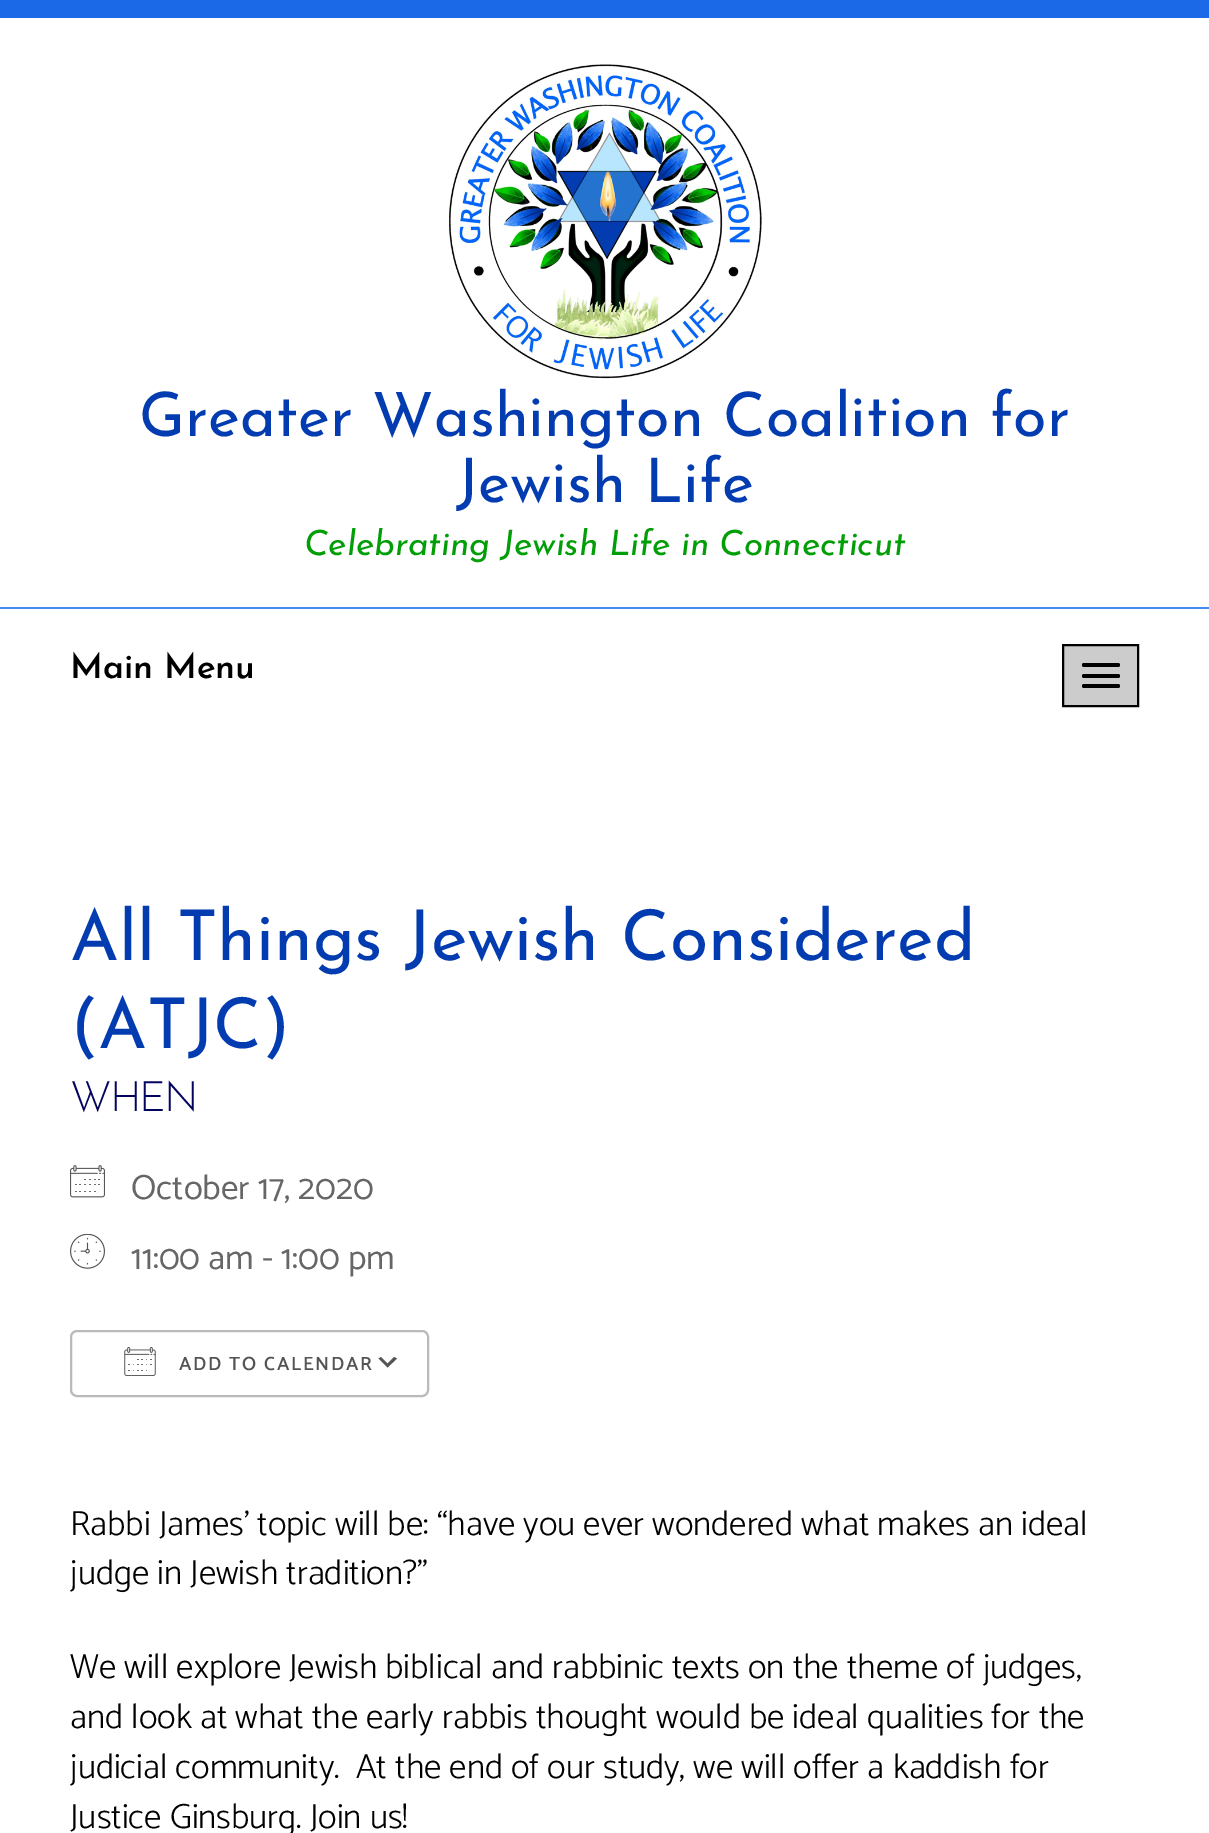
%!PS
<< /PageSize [1209 1833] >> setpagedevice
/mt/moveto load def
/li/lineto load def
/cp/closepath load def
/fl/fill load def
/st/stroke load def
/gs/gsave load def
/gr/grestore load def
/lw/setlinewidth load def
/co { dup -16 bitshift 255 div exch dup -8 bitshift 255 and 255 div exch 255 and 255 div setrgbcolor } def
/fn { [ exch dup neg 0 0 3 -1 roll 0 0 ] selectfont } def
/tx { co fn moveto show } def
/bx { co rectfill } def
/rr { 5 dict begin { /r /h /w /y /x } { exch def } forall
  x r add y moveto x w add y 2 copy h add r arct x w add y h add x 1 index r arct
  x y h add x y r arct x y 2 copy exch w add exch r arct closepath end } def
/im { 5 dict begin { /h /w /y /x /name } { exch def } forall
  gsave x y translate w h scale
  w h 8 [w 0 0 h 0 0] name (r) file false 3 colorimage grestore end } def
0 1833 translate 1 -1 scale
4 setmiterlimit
0 0 1209 1833 16#FFFFFF bx
0 0 1209 18 16#1B69E7 bx
(media/1.raw) 449 64 313 315 im
0 607 1209 2 16#418BF3 bx
16#CCCCCC co
1063 645 mt 1138 645 li 1138 706 li 1063 706 li cp gs fl gr
16#000000 co
2 lw
st
1082 663 38 4 2 rr fl
1082 674 38 4 2 rr fl
1082 684 38 4 2 rr fl
(media/2.raw) 70 1165 35 33 im
(media/3.raw) 70 1234 35 35 im
16#555555 co
381 1357 mt 387.5 1363.5 li 394 1357 li 397 1358.5 li 387.5 1367.5 li 378.5 1358.5 li cp fl
16#BABABA co
71 1331 357 65 6 rr st
(media/4.raw) 124 1347 32 29 im
(Greater Washington Coalition for) 139 436 /JosefinSans-Regular 61.25 16#033CB0 tx
(Jewish Life) 456 502 /JosefinSans-Regular 61.25 16#033CB0 tx
(Celebrating Jewish Life in Connecticut) 304 555 /JosefinSans-Italic 35 16#019E07 tx
(Main Menu) 70 678 /JosefinSans-SemiBold 35 16#000000 tx
(All Things Jewish Considered) 70 960 /JosefinSans-Regular 70 16#033CB0 tx
(\(ATJC\)) 70 1048 /JosefinSans-Regular 70 16#033CB0 tx
/JosefinSans-Light 42 fn
16#03045E co
70 1111 mt -2 0 (WHEN) ashow
(October 17, 2020) 131 1199 /Catamaran-Regular 35 16#666666 tx
(11:00 am - 1:00 pm) 131 1269 /Catamaran-Regular 35 16#666666 tx
/Catamaran-SemiBold 19.25 fn
16#545454 co
179 1370 mt 1.75 0 (ADD TO CALENDAR) ashow
(Rabbi James’ topic will be: “have you ever wondered what makes an ideal) 70 1535 /Catamaran-Light 35 16#000000 tx
(judge in Jewish tradition?”) 70 1584 /Catamaran-Light 35 16#000000 tx
(We will explore Jewish biblical and rabbinic texts on the theme of judges,) 70 1678 /Catamaran-Light 35 16#000000 tx
(and look at what the early rabbis thought would be ideal qualities for the) 70 1728 /Catamaran-Light 35 16#000000 tx
(judicial community.  At the end of our study, we will offer a kaddish for) 70 1778 /Catamaran-Light 35 16#000000 tx
(Justice Ginsburg. Join us!) 70 1828 /Catamaran-Light 35 16#000000 tx
showpage
